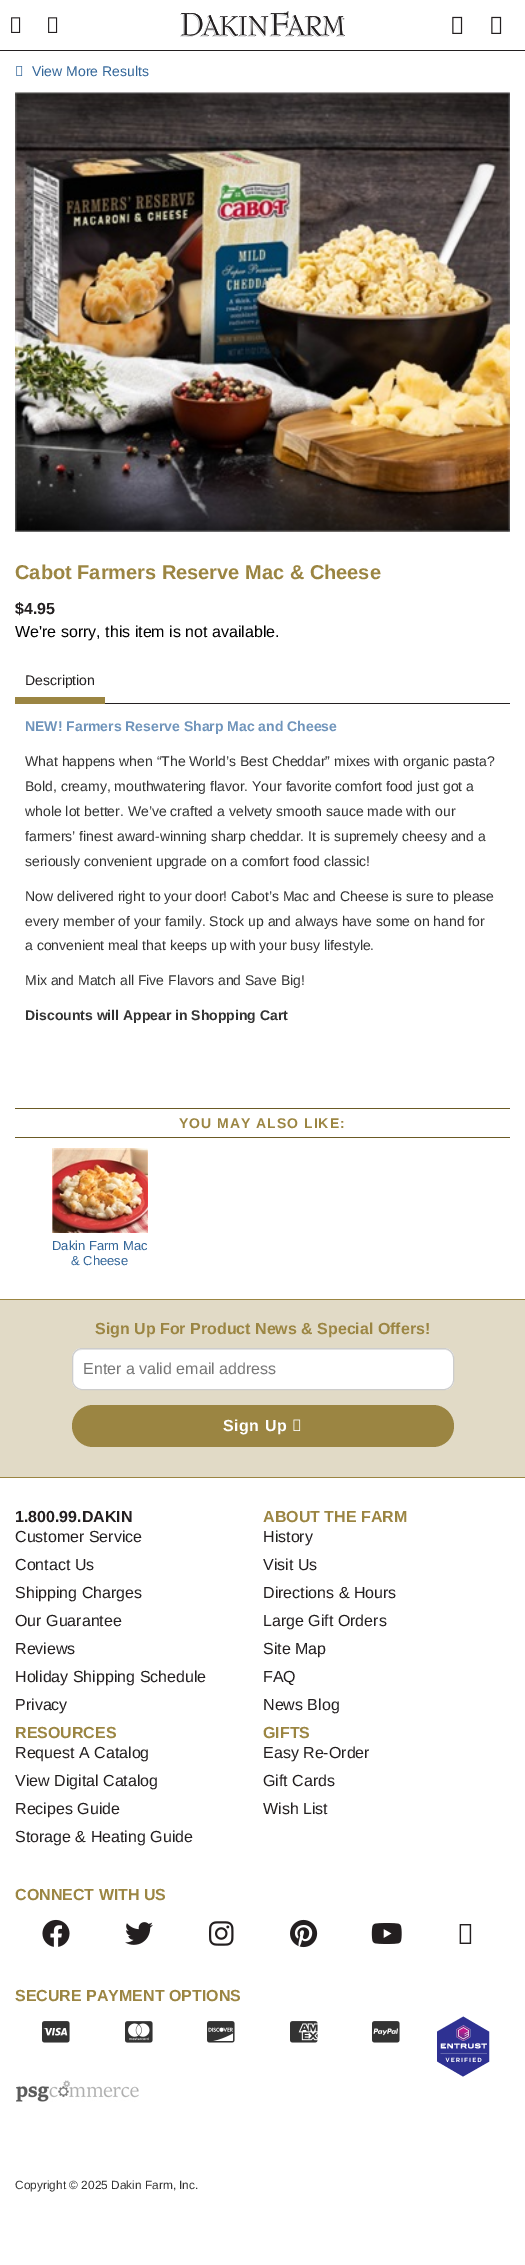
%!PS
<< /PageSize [525 2265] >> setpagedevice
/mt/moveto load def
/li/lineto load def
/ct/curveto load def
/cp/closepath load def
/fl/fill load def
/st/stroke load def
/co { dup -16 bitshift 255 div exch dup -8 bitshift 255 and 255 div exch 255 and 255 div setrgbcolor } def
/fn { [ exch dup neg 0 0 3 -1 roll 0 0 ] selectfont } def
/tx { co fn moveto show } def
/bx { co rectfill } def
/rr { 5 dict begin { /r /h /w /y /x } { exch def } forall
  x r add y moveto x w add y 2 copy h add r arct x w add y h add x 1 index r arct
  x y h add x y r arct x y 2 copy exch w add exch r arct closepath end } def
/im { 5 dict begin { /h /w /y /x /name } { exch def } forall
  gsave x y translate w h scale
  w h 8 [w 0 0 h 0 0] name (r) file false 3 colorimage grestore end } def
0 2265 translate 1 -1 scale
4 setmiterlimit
0 0 525 2265 16#FFFFFF bx
0 50 525 1 16#231F20 bx
(media/1.raw) 11 17 10 16 im
(media/1.raw) 48 17 10 16 im
(media/2.raw) 180 11 165 26 im
(media/3.raw) 452 16 11 18 im
(media/3.raw) 491 16 11 18 im
(media/4.raw) 16 66 7 10 im
(media/5.raw) 15 91 495 441 im
105 703 405 1 16#231F20 bx
15 697 90 7 16#9B8542 bx
15 1108 495 1 16#6B5A24 bx
15 1137 495 1 16#6B5A24 bx
(media/6.raw) 52 1148 96 85 im
0 1300 525 177 16#E1DAC6 bx
0 1299 525 1 16#9B8542 bx
0 1477 525 1 16#9B8542 bx
16#FFFFFF co
72 1348 382 42 10 rr fl
16#ECECEC co
82 1350 mt 446 1350 li 451 1351 453 1355 453 1359 ct 453 1358 li 453 1353 449 1349 444 1349 ct 82 1349 li 77 1349 73 1353 73 1358 ct 73 1360 li 73 1355 75 1350 82 1350 ct cp 453 1380 mt 453 1382 li cp eofill
16#CCCCCC co
72.5 1348.5 381 41 9.5 rr st
16#9B8542 co
72 1405 382 42 21 rr fl
(media/7.raw) 293 1419 8 12 im
(media/8.raw) 42 1919 28 28 im
(media/9.raw) 125 1922 28 23 im
(media/10.raw) 209 1921 25 25 im
(media/11.raw) 290 1919 28 29 im
(media/12.raw) 371 1923 31 21 im
(media/13.raw) 459 1924 13 20 im
(media/14.raw) 437 2016 53 61 im
(media/15.raw) 16 2080 123 22 im
(media/16.raw) 42 2021 28 22 im
(media/17.raw) 125 2021 28 22 im
(media/18.raw) 207 2021 28 22 im
(media/19.raw) 290 2021 28 22 im
(media/20.raw) 372 2021 28 22 im
(View More Results) 32 76 /LiberationSans-Regular 14 16#336699 tx
(Cabot Farmers Reserve Mac & Cheese) 15 579 /LiberationSans-Bold 20 16#9B8542 tx
($4.95) 15 614 /LiberationSans-Bold 16 16#231F20 tx
(We're sorry, this item is not available.) 15 637 /LiberationSans-Regular 16 16#000000 tx
(Description) 25 685 /LiberationSans-Regular 14 16#231F20 tx
(NEW! Farmers Reserve Sharp Mac and Cheese) 25 731 /LiberationSans-Bold 14 16#6F94BB tx
(What happens when “The World’s Best Cheddar” mixes with organic pasta?) 25 766 /LiberationSans-Regular 14 16#333333 tx
(Bold, creamy, mouthwatering flavor. Your favorite comfort food just got a) 25 791 /LiberationSans-Regular 14 16#333333 tx
(whole lot better. We’ve crafted a velvety smooth sauce made with our) 25 816 /LiberationSans-Regular 14 16#333333 tx
(farmers’ finest award-winning sharp cheddar. It is supremely cheesy and a) 25 841 /LiberationSans-Regular 14 16#333333 tx
(seriously convenient upgrade on a comfort food classic!) 25 866 /LiberationSans-Regular 14 16#333333 tx
(Now delivered right to your door! Cabot’s Mac and Cheese is sure to please) 25 901 /LiberationSans-Regular 14 16#333333 tx
(every member of your family. Stock up and always have some on hand for) 25 926 /LiberationSans-Regular 14 16#333333 tx
(a convenient meal that keeps up with your busy lifestyle.) 25 950 /LiberationSans-Regular 14 16#333333 tx
(Mix and Match all Five Flavors and Save Big!) 25 985 /LiberationSans-Regular 14 16#333333 tx
(Discounts will Appear in Shopping Cart) 25 1020 /LiberationSans-Bold 14 16#333333 tx
16#9B8542 co
179 1128 mt 1 0 (YOU MAY ALSO LIKE:) ashow
(Dakin Farm Mac) 52 1250 /LiberationSans-Regular 13 16#336699 tx
(& Cheese) 71 1265 /LiberationSans-Regular 13 16#336699 tx
(Sign Up For Product News & Special Offers!) 95 1334 /LiberationSans-Bold 16 16#9B8542 tx
(Enter a valid email address) 83 1374 /LiberationSans-Regular 16 16#777777 tx
/LiberationSans-Bold 16 fn
16#FFFFFF co
223 1431 mt .5 0 (Sign Up) ashow
(1.800.99.DAKIN) 15 1522 /LiberationSans-Bold 16 16#231F20 tx
(Customer Service) 15 1542 /LiberationSans-Regular 16 16#231F20 tx
(Contact Us) 15 1570 /LiberationSans-Regular 16 16#231F20 tx
(Shipping Charges) 15 1598 /LiberationSans-Regular 16 16#231F20 tx
(Our Guarantee) 15 1626 /LiberationSans-Regular 16 16#231F20 tx
(Reviews) 15 1654 /LiberationSans-Regular 16 16#231F20 tx
(Holiday Shipping Schedule) 15 1682 /LiberationSans-Regular 16 16#231F20 tx
(Privacy) 15 1710 /LiberationSans-Regular 16 16#231F20 tx
(RESOURCES) 15 1738 /LiberationSans-Bold 16 16#9B8542 tx
(Request A Catalog) 15 1758 /LiberationSans-Regular 16 16#231F20 tx
(View Digital Catalog) 15 1786 /LiberationSans-Regular 16 16#231F20 tx
(Recipes Guide) 15 1814 /LiberationSans-Regular 16 16#231F20 tx
(Storage & Heating Guide) 15 1842 /LiberationSans-Regular 16 16#231F20 tx
(ABOUT THE FARM) 263 1522 /LiberationSans-Bold 16 16#9B8542 tx
(History) 263 1542 /LiberationSans-Regular 16 16#231F20 tx
(Visit Us) 263 1570 /LiberationSans-Regular 16 16#231F20 tx
(Directions & Hours) 263 1598 /LiberationSans-Regular 16 16#231F20 tx
(Large Gift Orders) 263 1626 /LiberationSans-Regular 16 16#231F20 tx
(Site Map) 263 1654 /LiberationSans-Regular 16 16#231F20 tx
(FAQ) 263 1682 /LiberationSans-Regular 16 16#231F20 tx
(News Blog) 263 1710 /LiberationSans-Regular 16 16#231F20 tx
(GIFTS) 263 1738 /LiberationSans-Bold 16 16#9B8542 tx
(Easy Re-Order) 263 1758 /LiberationSans-Regular 16 16#231F20 tx
(Gift Cards) 263 1786 /LiberationSans-Regular 16 16#231F20 tx
(Wish List) 263 1814 /LiberationSans-Regular 16 16#231F20 tx
(CONNECT WITH US) 15 1900 /LiberationSans-Bold 16 16#9B8542 tx
(SECURE PAYMENT OPTIONS) 15 2001 /LiberationSans-Bold 16 16#9B8542 tx
(Copyright © 2025 Dakin Farm, Inc.) 15 2189 /LiberationSans-Regular 11.9 16#333333 tx
showpage
